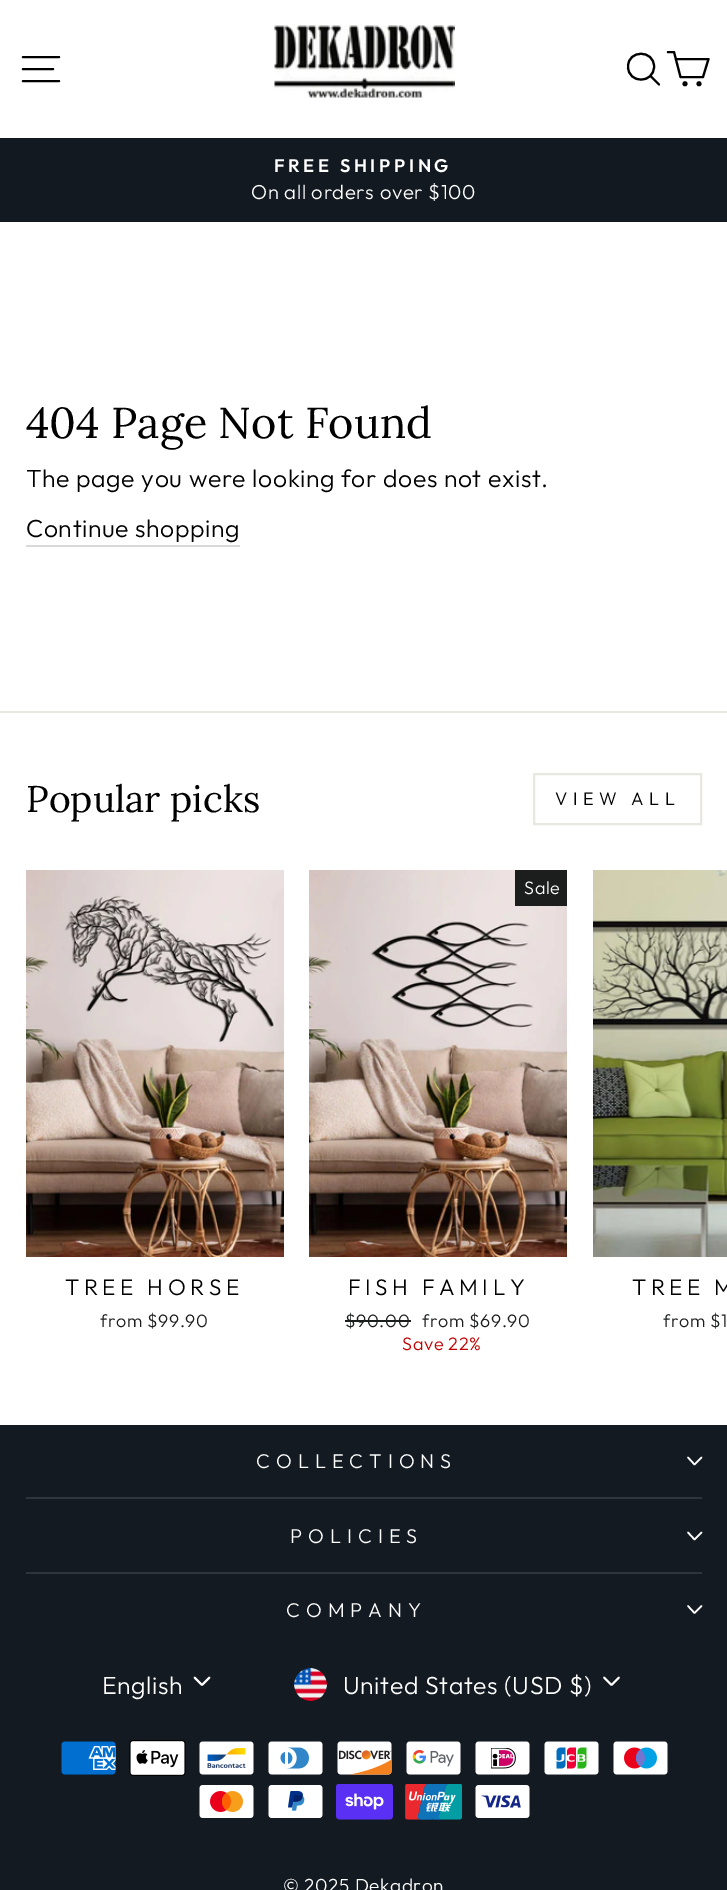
%!PS
<< /PageSize [727 1890] >> setpagedevice
/mt/moveto load def
/li/lineto load def
/ct/curveto load def
/cp/closepath load def
/st/stroke load def
/lw/setlinewidth load def
/co { dup -16 bitshift 255 div exch dup -8 bitshift 255 and 255 div exch 255 and 255 div setrgbcolor } def
/fn { [ exch dup neg 0 0 3 -1 roll 0 0 ] selectfont } def
/tx { co fn moveto show } def
/bx { co rectfill } def
/ci { newpath 0 360 arc closepath } def
/im { 5 dict begin { /h /w /y /x /name } { exch def } forall
  gsave x y translate w h scale
  w h 8 [w 0 0 h 0 0] name (r) file false 3 colorimage grestore end } def
0 1890 translate 1 -1 scale
4 setmiterlimit
0 0 727 1890 16#FFFFFF bx
16#000000 co
2.1 lw
1 setlinecap
1 setlinejoin
23 57 mt 59 57 li 23 69 mt 53 69 li 23 81 mt 59 81 li st
(media/1.raw) 274 25 181 73 im
654 66.5 mt 654 84 628 84 628 66.5 ct 628 49.5 654 49.5 654 66.5 ct cp 659 84.5 mt 650.5 76 li st
676 59 mt 708.5 59 li 703 77 li 680.5 77 li 674 52 li 668 52 li st
0 setlinecap
0 setlinejoin
685 83.8 1.4 ci st
699 83.8 1.4 ci st
0 138 727 84 16#131921 bx
26 545 214 2 16#D9D9D9 bx
0 711 727 2 16#E8E8E1 bx
2 lw
534 774 167 50 rectstroke
(media/2.raw) 26 870 258 387 im
(media/3.raw) 309 870 258 387 im
515 870 52 36 16#1C1D1D bx
345 1320 66 2 16#1C1D1D bx
(media/4.raw) 593 870 134 387 im
0 1425 727 465 16#131A22 bx
16#FFFFFF co
1.6 lw
1 setlinecap
1 setlinejoin
688 1457.5 mt 694.5 1464.5 li 701.5 1457.5 li st
26 1497 676 2 16#2F353D bx
16#FFFFFF co
688 1532.5 mt 694.5 1539.5 li 701.5 1532.5 li st
26 1572 676 2 16#2F353D bx
16#FFFFFF co
688 1606 mt 694.5 1613 li 701.5 1606 li st
1.8 lw
194.5 1677.5 mt 202 1685 li 209.5 1677.5 li st
(media/5.raw) 294 1668 33 33 im
604 1677.5 mt 611.5 1685 li 619 1677.5 li st
(media/6.raw) 61 1741 55 34 im
(media/7.raw) 129 1740 57 36 im
(media/8.raw) 199 1741 55 34 im
(media/9.raw) 268 1741 55 34 im
(media/10.raw) 337 1741 55 34 im
(media/11.raw) 406 1741 55 34 im
(media/12.raw) 475 1741 55 34 im
(media/13.raw) 544 1741 55 34 im
(media/14.raw) 613 1741 55 34 im
(media/15.raw) 199 1785 55 33 im
(media/16.raw) 268 1785 55 33 im
(media/17.raw) 336 1784 57 36 im
(media/18.raw) 405 1784 57 36 im
(media/19.raw) 475 1785 55 33 im
/Outfit-SemiBold 18.25 fn
274 172 mt 3.6 0 (FREE SHIPPING) ashow
/Outfit-Light 20.25 fn
251 199 mt .6 0 (On all orders over $100) ashow
(404 Page Not Found) 26 438 /Lora-Regular 43.25 16#000000 tx
/Outfit-Light 24.8 fn
26 487 mt .6 0 (The page you were looking for does not exist.) ashow
26 537 mt .6 0 (Continue shopping) ashow
(Popular picks) 26 812 /Lora-Regular 37.25 16#000000 tx
/Outfit-Light 18 fn
555 805 mt 5.5 0 (VIEW ALL) ashow
/Outfit-Light 22.5 fn
65 1295 mt 4.5 0 (TREE HORSE) ashow
/Outfit-Light 18 fn
16#1C1D1D co
100 1327 mt .6 0 (from $99.90) ashow
16#FFFFFF co
524 894 mt .6 0 (Sale) ashow
/Outfit-Light 22.5 fn
16#000000 co
348 1295 mt 4.5 0 (FISH FAMILY) ashow
/Outfit-Light 18 fn
16#1C1D1D co
345 1327 mt .6 0 ($90.00) ashow
422 1327 mt .6 0 (from $69.90) ashow
16#C20000 co
402 1350 mt .6 0 (Save 22%) ashow
/Outfit-Light 22.5 fn
16#000000 co
632 1295 mt 4.5 0 (TREE M) ashow
/Outfit-Light 18 fn
16#1C1D1D co
663 1327 mt .6 0 (from $1) ashow
/Outfit-Light 19.9 fn
16#FFFFFF co
256 1468 mt 6 0 (COLLECTIONS) ashow
290 1543 mt 6 0 (POLICIES) ashow
286 1617 mt 6 0 (COMPANY) ashow
/Outfit-Light 24.8 fn
102 1694 mt .6 0 (English) ashow
343 1694 mt .6 0 (United States \(USD $\)) ashow
/Outfit-Light 19 fn
283 1892 mt .6 0 (© 2025 Dekadron) ashow
showpage
